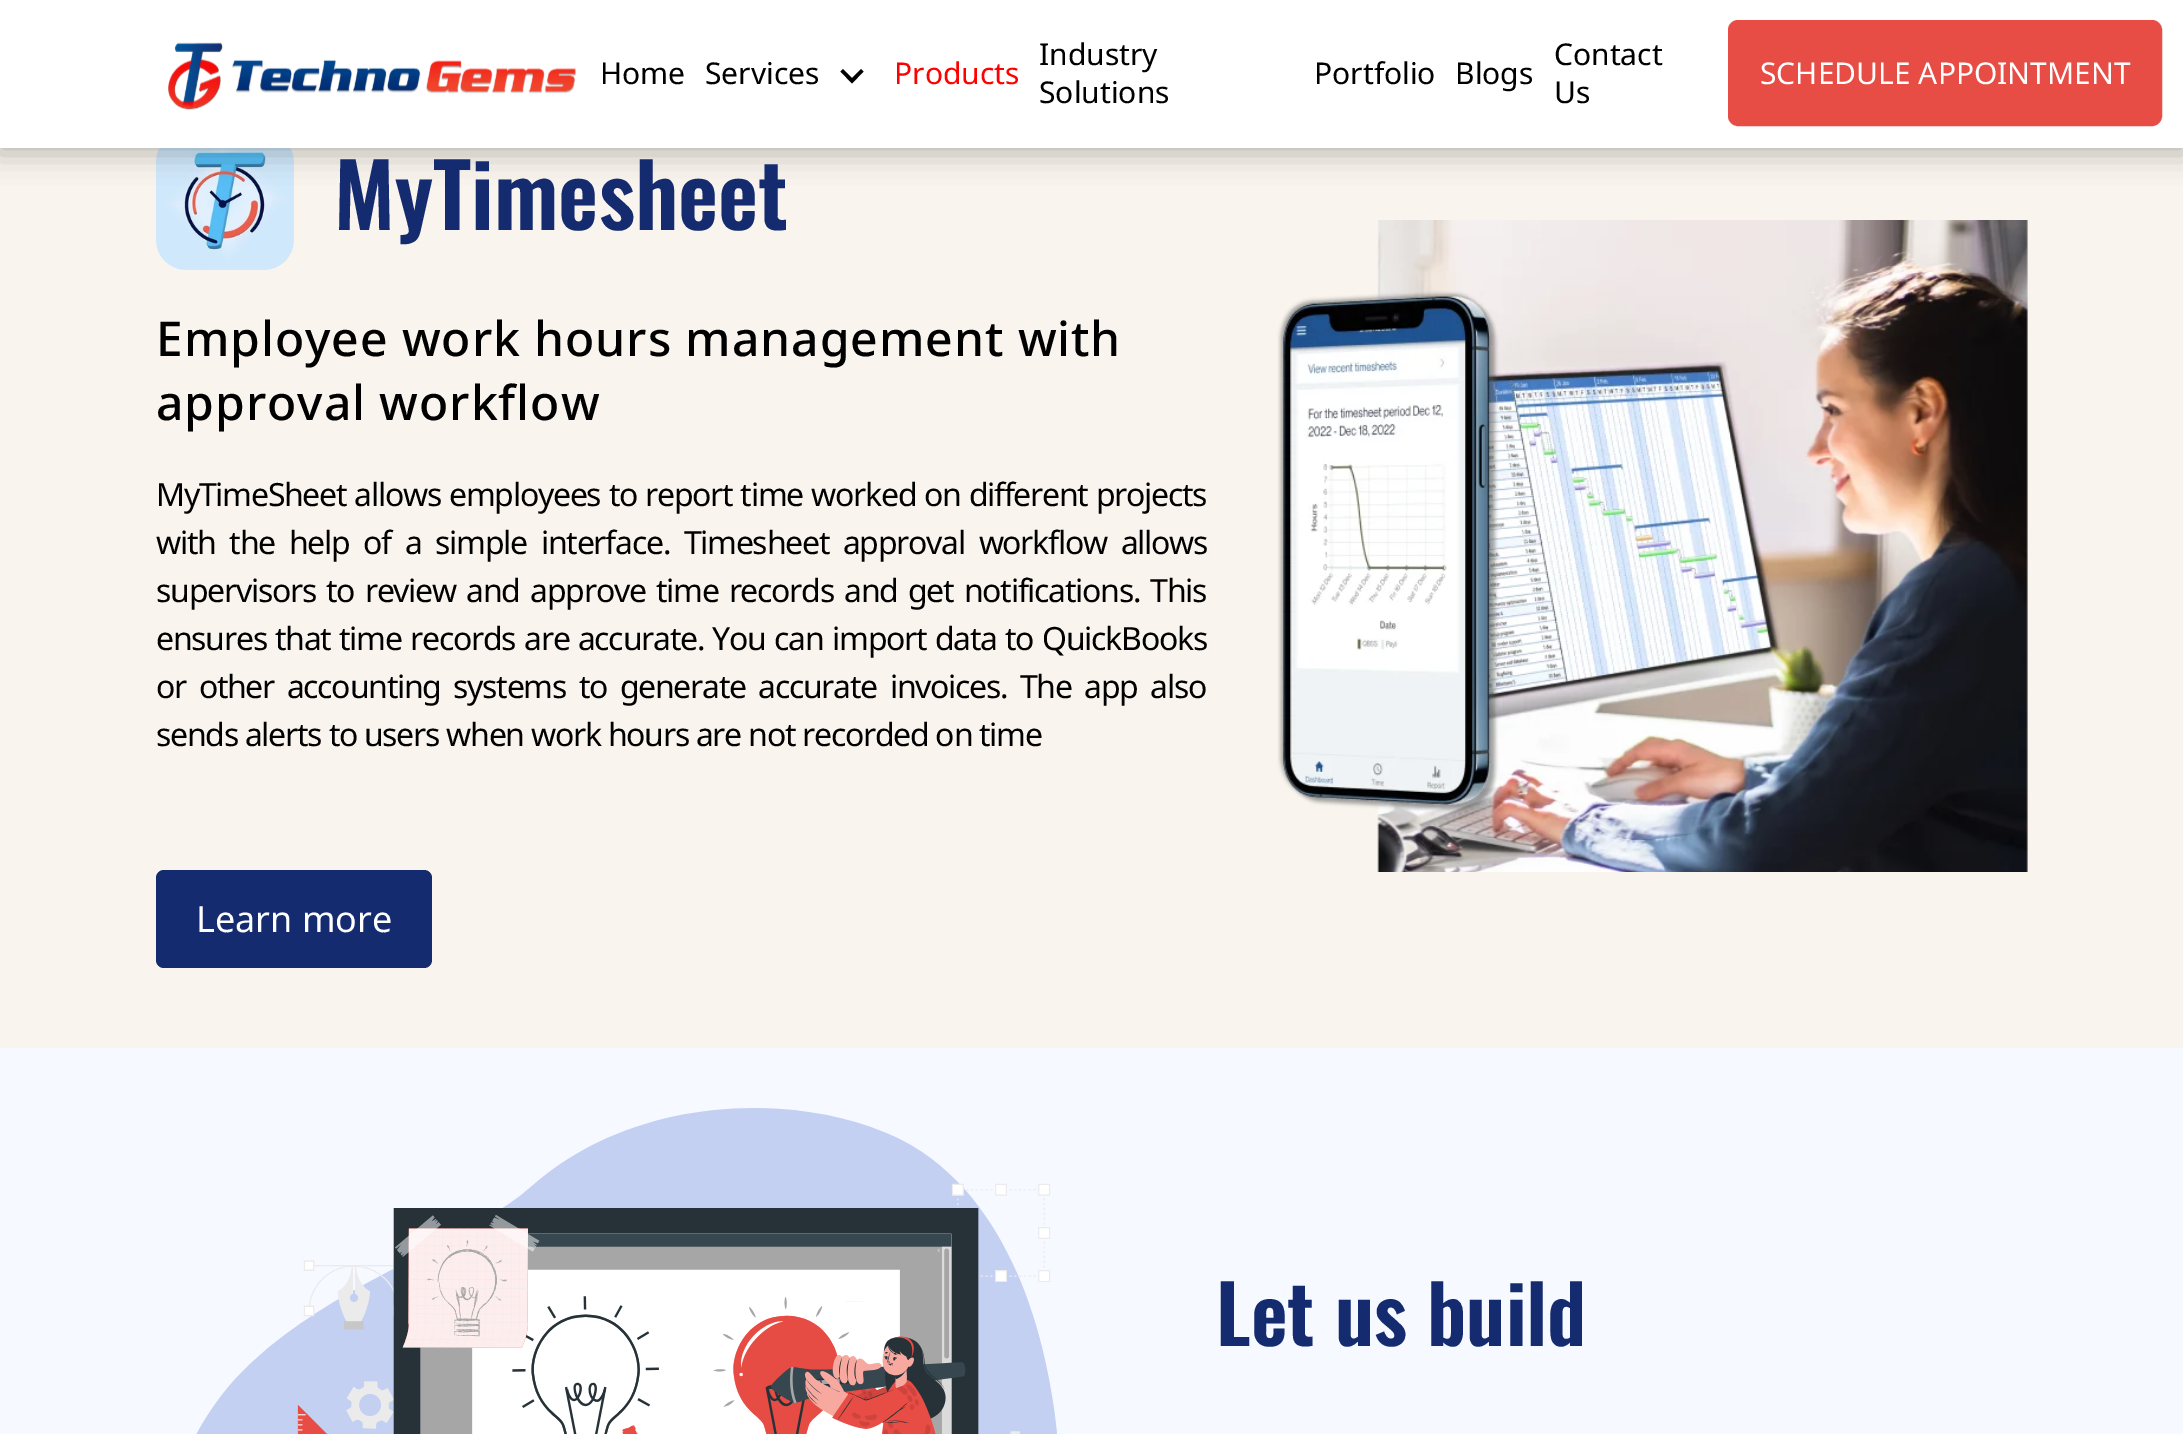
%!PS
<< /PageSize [2183 1434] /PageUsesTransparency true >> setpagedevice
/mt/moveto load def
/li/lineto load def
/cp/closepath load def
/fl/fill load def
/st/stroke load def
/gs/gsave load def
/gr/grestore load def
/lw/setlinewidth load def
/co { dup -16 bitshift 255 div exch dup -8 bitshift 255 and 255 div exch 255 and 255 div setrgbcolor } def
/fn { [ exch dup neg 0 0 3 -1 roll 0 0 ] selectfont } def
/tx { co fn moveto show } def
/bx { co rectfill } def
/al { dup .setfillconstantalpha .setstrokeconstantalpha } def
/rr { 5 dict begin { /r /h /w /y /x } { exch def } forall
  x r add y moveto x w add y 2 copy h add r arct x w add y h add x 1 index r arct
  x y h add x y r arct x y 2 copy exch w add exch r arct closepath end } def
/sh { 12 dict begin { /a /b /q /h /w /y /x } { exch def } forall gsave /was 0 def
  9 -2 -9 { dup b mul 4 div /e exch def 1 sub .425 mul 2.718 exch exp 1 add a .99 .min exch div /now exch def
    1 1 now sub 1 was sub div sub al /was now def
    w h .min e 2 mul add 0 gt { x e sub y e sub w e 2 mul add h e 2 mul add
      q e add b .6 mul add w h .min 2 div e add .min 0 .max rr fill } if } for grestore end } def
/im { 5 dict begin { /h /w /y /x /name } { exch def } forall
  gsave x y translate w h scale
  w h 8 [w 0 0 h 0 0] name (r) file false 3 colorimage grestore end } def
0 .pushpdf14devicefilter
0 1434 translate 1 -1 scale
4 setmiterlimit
0 0 2183 1434 16#F9F5EE bx
(media/2.raw) 156 148 138 122 im
16#000000 co
-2 0 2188 154 0 14 .25 sh
0 0 2183 148 16#FFFFFF bx
(media/1.raw) 168 42 408 68 im
16#000000 co
852 78 mt 861 69 li 863.5 71.5 li 852 83.5 li 840.5 71.5 li 843 69 li cp fl
16#E74C45 co
1730 22 430 102 8 rr gs fl gr
4 lw
st
16#152B6F co
156 870 276 98 8 rr fl
(media/3.raw) 1277 220 751 652 im
0 1048 2183 386 16#F6F9FF bx
(media/4.raw) 196 1108 861 326 im
(Home) 600 84 /NotoSans-Regular 30 16#000000 tx
(Services) 705 84 /NotoSans-Regular 30 16#000000 tx
(Products) 894 84 /NotoSans-Regular 30 16#FF0000 tx
(Industry) 1039 65 /NotoSans-Regular 30 16#000000 tx
(Solutions) 1039 103 /NotoSans-Regular 30 16#000000 tx
(Portfolio) 1314 84 /NotoSans-Regular 30 16#000000 tx
(Blogs) 1455 84 /NotoSans-Regular 30 16#000000 tx
(Contact) 1554 65 /NotoSans-Regular 30 16#000000 tx
(Us) 1554 103 /NotoSans-Regular 30 16#000000 tx
(SCHEDULE APPOINTMENT) 1760 84 /NotoSans-Regular 30 16#FFFFFF tx
(MyTimesheet) 334 230 /Oswald-SemiBold 87.5 16#152B6F tx
/NotoSans-Medium 48 fn
16#000000 co
156 356 mt .95 0 (Employee work hours management with) ashow
156 420 mt .95 0 (approval workflow) ashow
/NotoSans-Regular 32 fn
156 506 mt 1 0 32 -1.28 0 (MyTimeSheet allows employees to report time worked on different projects) awidthshow
156 554 mt 6.75 0 32 -1.28 0 (with the help of a simple interface. Timesheet approval workflow allows) awidthshow
156 602 mt 3.25 0 32 -1.28 0 (supervisors to review and approve time records and get notifications. This) awidthshow
156 650 mt 1.4 0 32 -1.28 0 (ensures that time records are accurate. You can import data to QuickBooks) awidthshow
156 698 mt 5.5 0 32 -1.28 0 (or other accounting systems to generate accurate invoices. The app also) awidthshow
156 746 mt -1.28 0 (sends alerts to users when work hours are not recorded on time) ashow
(Learn more) 196 932 /NotoSans-Regular 36 16#FFFFFF tx
(Let us build) 1216 1346 /Oswald-SemiBold 80 16#152B6F tx
.poppdf14devicefilter showpage
